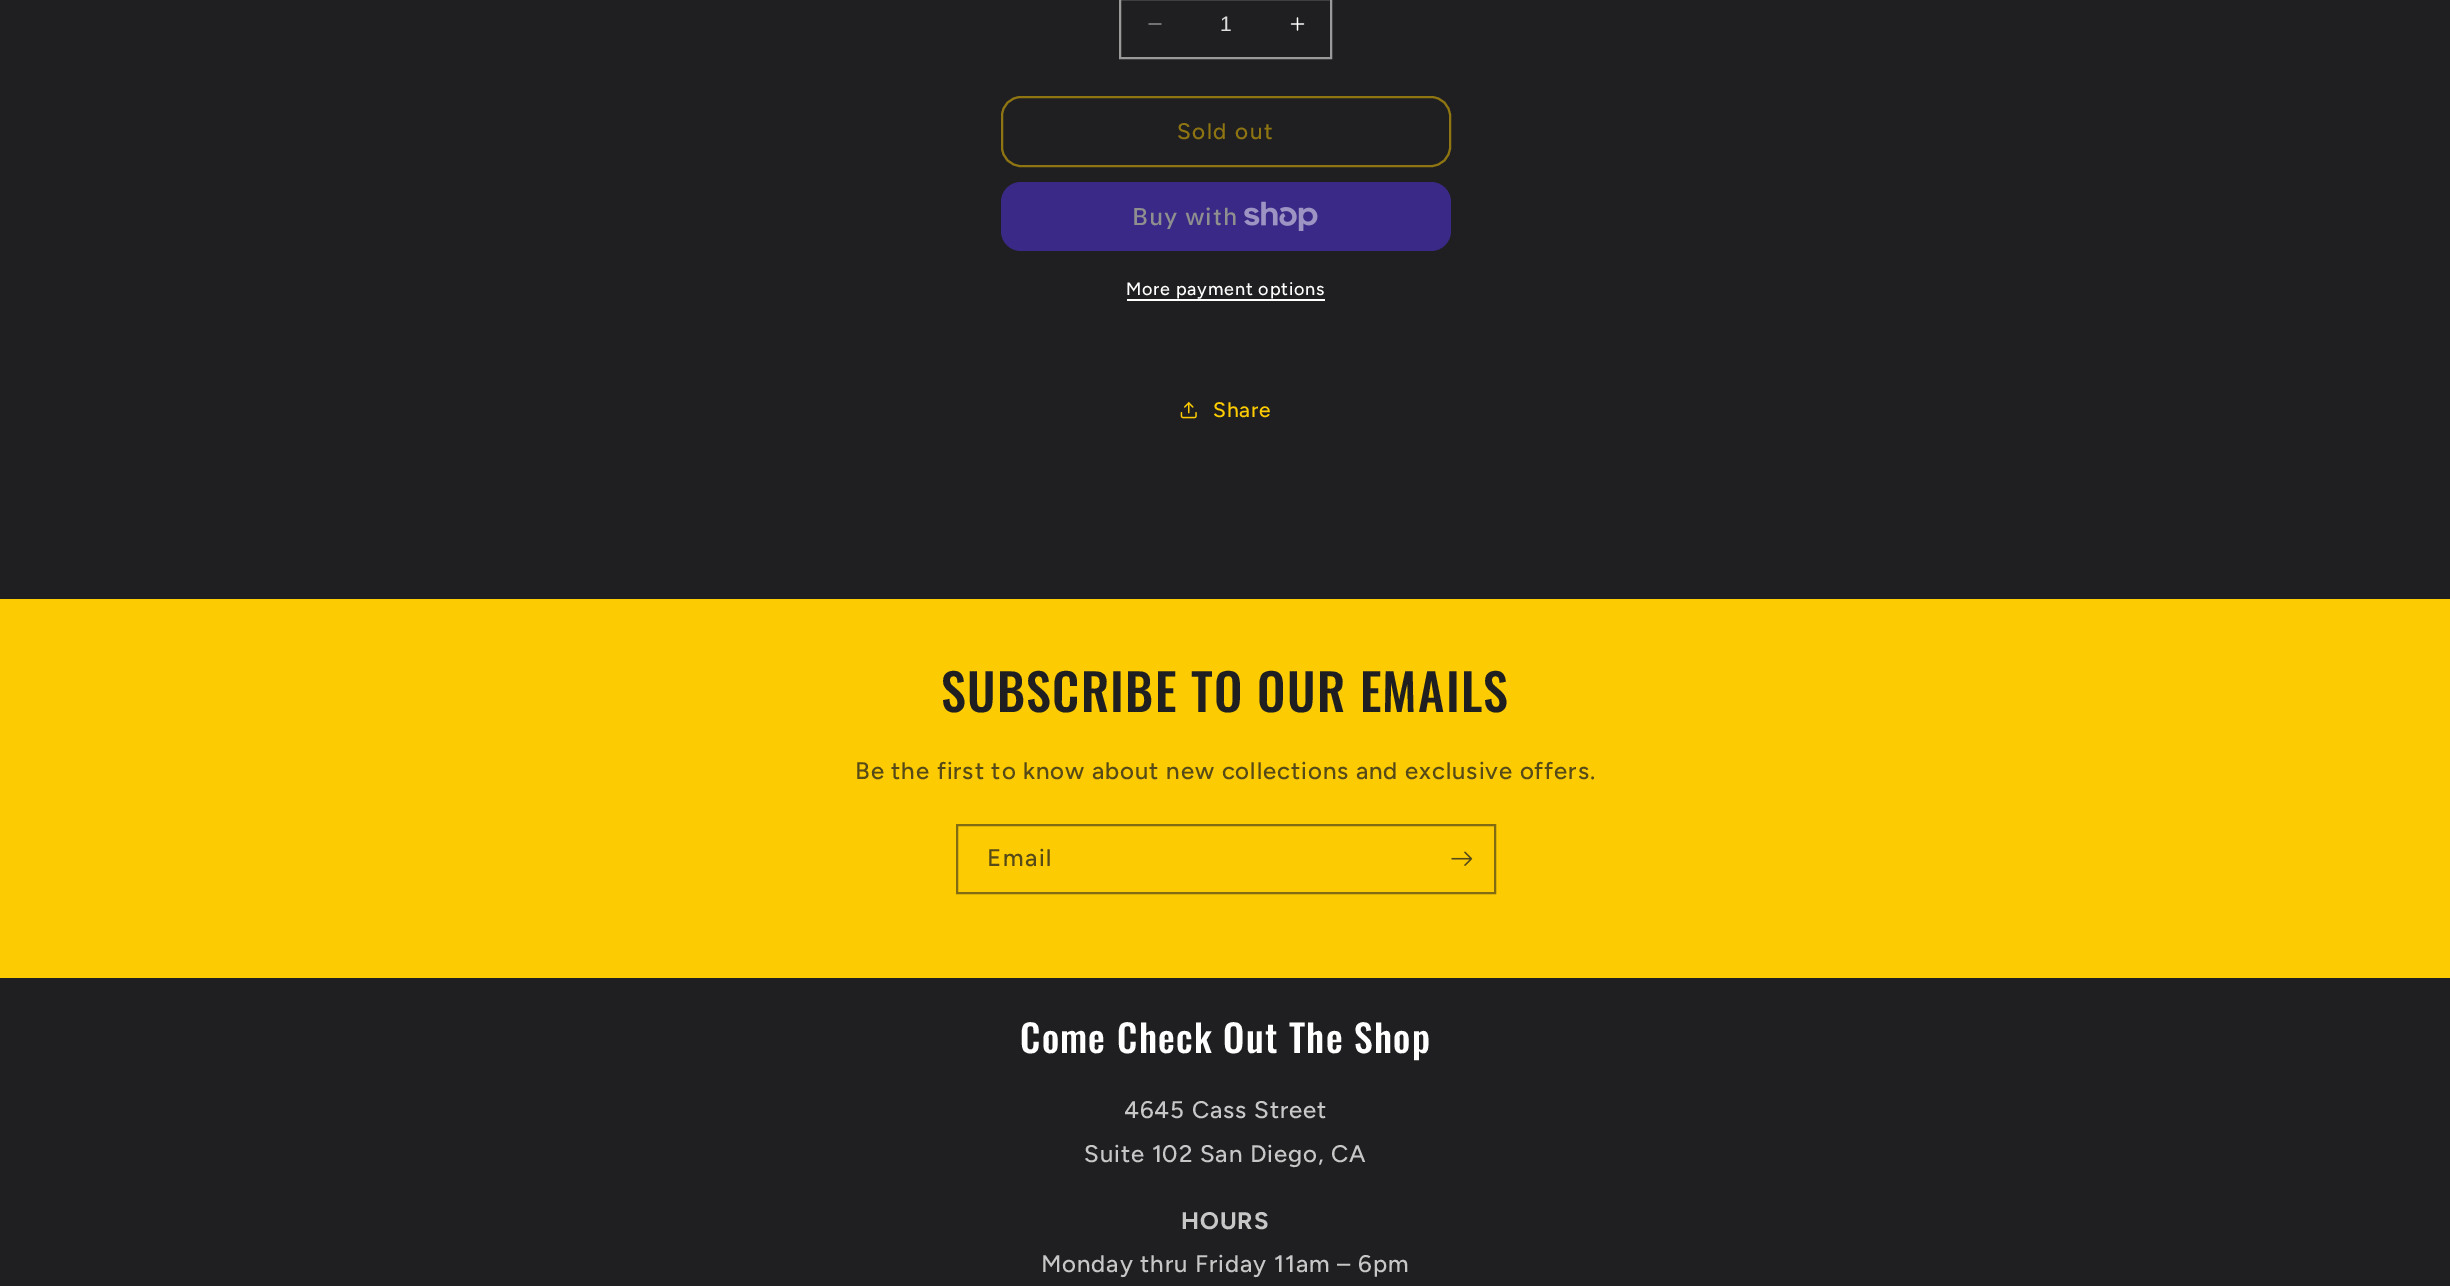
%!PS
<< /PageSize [2450 1286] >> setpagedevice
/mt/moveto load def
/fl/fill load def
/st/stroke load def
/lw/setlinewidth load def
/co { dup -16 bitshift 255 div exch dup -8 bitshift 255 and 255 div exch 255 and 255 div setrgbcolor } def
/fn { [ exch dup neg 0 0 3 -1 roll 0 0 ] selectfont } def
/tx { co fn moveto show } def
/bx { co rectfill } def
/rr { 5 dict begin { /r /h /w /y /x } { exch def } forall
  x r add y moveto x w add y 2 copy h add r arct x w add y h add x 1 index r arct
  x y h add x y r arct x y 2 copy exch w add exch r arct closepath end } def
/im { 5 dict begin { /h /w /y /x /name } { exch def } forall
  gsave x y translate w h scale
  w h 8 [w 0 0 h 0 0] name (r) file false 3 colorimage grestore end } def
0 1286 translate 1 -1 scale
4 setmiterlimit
0 0 2450 1286 16#1F1F21 bx
(media/1.raw) 1148 23 14 2 im
(media/2.raw) 1290 17 15 14 im
16#9A9A9B co
2 lw
1120 -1 211 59 rectstroke
16#8E7512 co
1002 97 448 69 19 rr st
16#3A2986 co
1001 182 450 69 20 rr fl
(media/3.raw) 1244 201 74 30 im
1127 299 198 2 16#FFFFFF bx
(media/4.raw) 1180 402 17 17 im
0 599 2450 379 16#FCCB02 bx
16#826C13 co
957 825 538 68 rectstroke
(media/5.raw) 1451 851 22 15 im
(1) 1220 31 /LiberationSans-Regular 21 16#DDDDDE tx
/Figtree-Medium 22.5 fn
16#8E7512 co
1177 139 mt 1.5 0 (Sold out) ashow
/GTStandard-Medium 24 fn
16#8F8F90 co
1132 225 mt .9 0 (Buy with) ashow
/Figtree-Medium 18 fn
16#FFFFFF co
1126 295 mt .75 0 (More payment options) ashow
/Figtree-Medium 21 fn
16#FCCB02 co
1213 417 mt .9 0 (Share) ashow
/Oswald-Medium 50.4 fn
16#1F1F21 co
941 712 mt 1.25 0 (SUBSCRIBE TO OUR EMAILS) ashow
/Figtree-Medium 24 fn
16#564A19 co
855 779 mt .9 0 (Be the first to know about new collections and exclusive offers.) ashow
987 866 mt 1.5 0 (Email) ashow
/Oswald-Medium 37.75 fn
16#FFFFFF co
1020 1053 mt 1.25 0 (Come Check Out The Shop) ashow
/Figtree-Medium 24 fn
16#C7C7C8 co
1124 1118 mt .9 0 (4645 Cass Street) ashow
1084 1162 mt .9 0 (Suite 102 San Diego, CA) ashow
/Figtree-Bold 24 fn
1181 1229 mt .9 0 (HOURS) ashow
/Figtree-Medium 24 fn
1041 1272 mt .9 0 (Monday thru Friday 11am – 6pm) ashow
showpage
